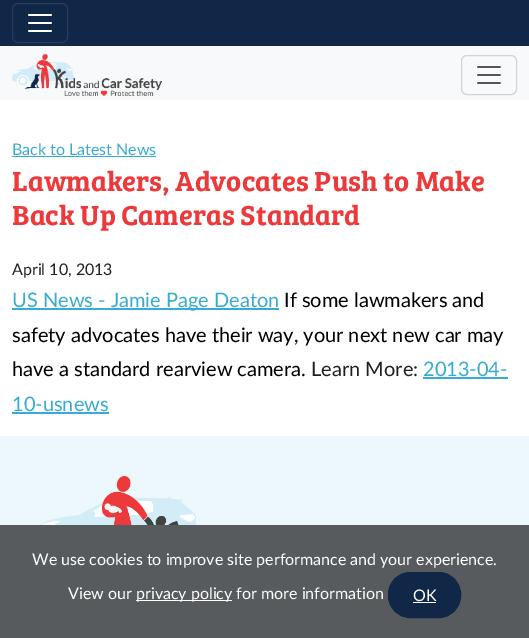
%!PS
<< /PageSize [529 638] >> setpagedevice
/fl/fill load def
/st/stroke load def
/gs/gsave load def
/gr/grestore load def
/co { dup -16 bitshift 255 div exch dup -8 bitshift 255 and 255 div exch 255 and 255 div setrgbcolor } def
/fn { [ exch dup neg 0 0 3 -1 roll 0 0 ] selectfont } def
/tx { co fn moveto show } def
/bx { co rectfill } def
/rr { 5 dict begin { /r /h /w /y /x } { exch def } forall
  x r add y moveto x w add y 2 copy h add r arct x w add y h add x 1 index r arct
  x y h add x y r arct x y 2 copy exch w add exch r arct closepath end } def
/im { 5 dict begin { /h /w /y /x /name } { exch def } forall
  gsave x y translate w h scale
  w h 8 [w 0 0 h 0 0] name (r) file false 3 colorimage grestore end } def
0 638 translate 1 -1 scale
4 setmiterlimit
0 0 529 638 16#FFFFFF bx
0 0 529 46 16#112748 bx
16#293D5A co
12.5 3.5 55 39 5.5 rr st
(media/1.raw) 28 14 24 18 im
0 46 529 54 16#F8F9FA bx
(media/2.raw) 12 53 150 43 im
16#D3D4D5 co
461.5 55.5 55 39 5.5 rr st
(media/3.raw) 477 66 24 18 im
12 156 144 1 16#37ACD2 bx
12 308 267 2 16#37ACD2 bx
423 377 85 2 16#37ACD2 bx
12 412 97 2 16#37ACD2 bx
0 436 529 89 16#ECF8FB bx
(media/4.raw) 40 476 157 49 im
0 525 529 113 16#575B5D bx
136 600 96 1 16#FFFFFF bx
16#112748 co
388.5 572.5 72 45 21.5 rr gs fl gr
st
413 602 23 1 16#FFFFFF bx
(Back to Latest News) 12 155 /Lato-Regular 16 16#37ACD2 tx
(Lawmakers, Advocates Push to Make) 12 191 /BreeSerif-SemiBold 28.4 16#ED393A tx
(Back Up Cameras Standard) 12 225 /BreeSerif-SemiBold 28.4 16#ED393A tx
(April 10, 2013) 12 275 /Lato-Regular 16 16#231F20 tx
(US News - Jamie Page Deaton) 12 307 /Lato-Regular 20 16#37ACD2 tx
(If some lawmakers and) 284 307 /Lato-Regular 20 16#000000 tx
(safety advocates have their way, your next new car may) 12 342 /Lato-Regular 20 16#000000 tx
(have a standard rearview camera.) 12 376 /Lato-Regular 20 16#000000 tx
(Learn More:) 311 376 /Lato-Regular 20 16#231F20 tx
(2013-04-) 423 376 /Lato-Regular 20 16#37ACD2 tx
(10-usnews) 12 411 /Lato-Regular 20 16#37ACD2 tx
(We use cookies to improve site performance and your experience.) 32 565 /Lato-Regular 16 16#FFFFFF tx
(View our) 68 599 /Lato-Regular 16 16#FFFFFF tx
(privacy policy for more information) 136 599 /Lato-Regular 16 16#FFFFFF tx
(OK) 413 601 /Lato-Regular 16 16#FFFFFF tx
showpage
